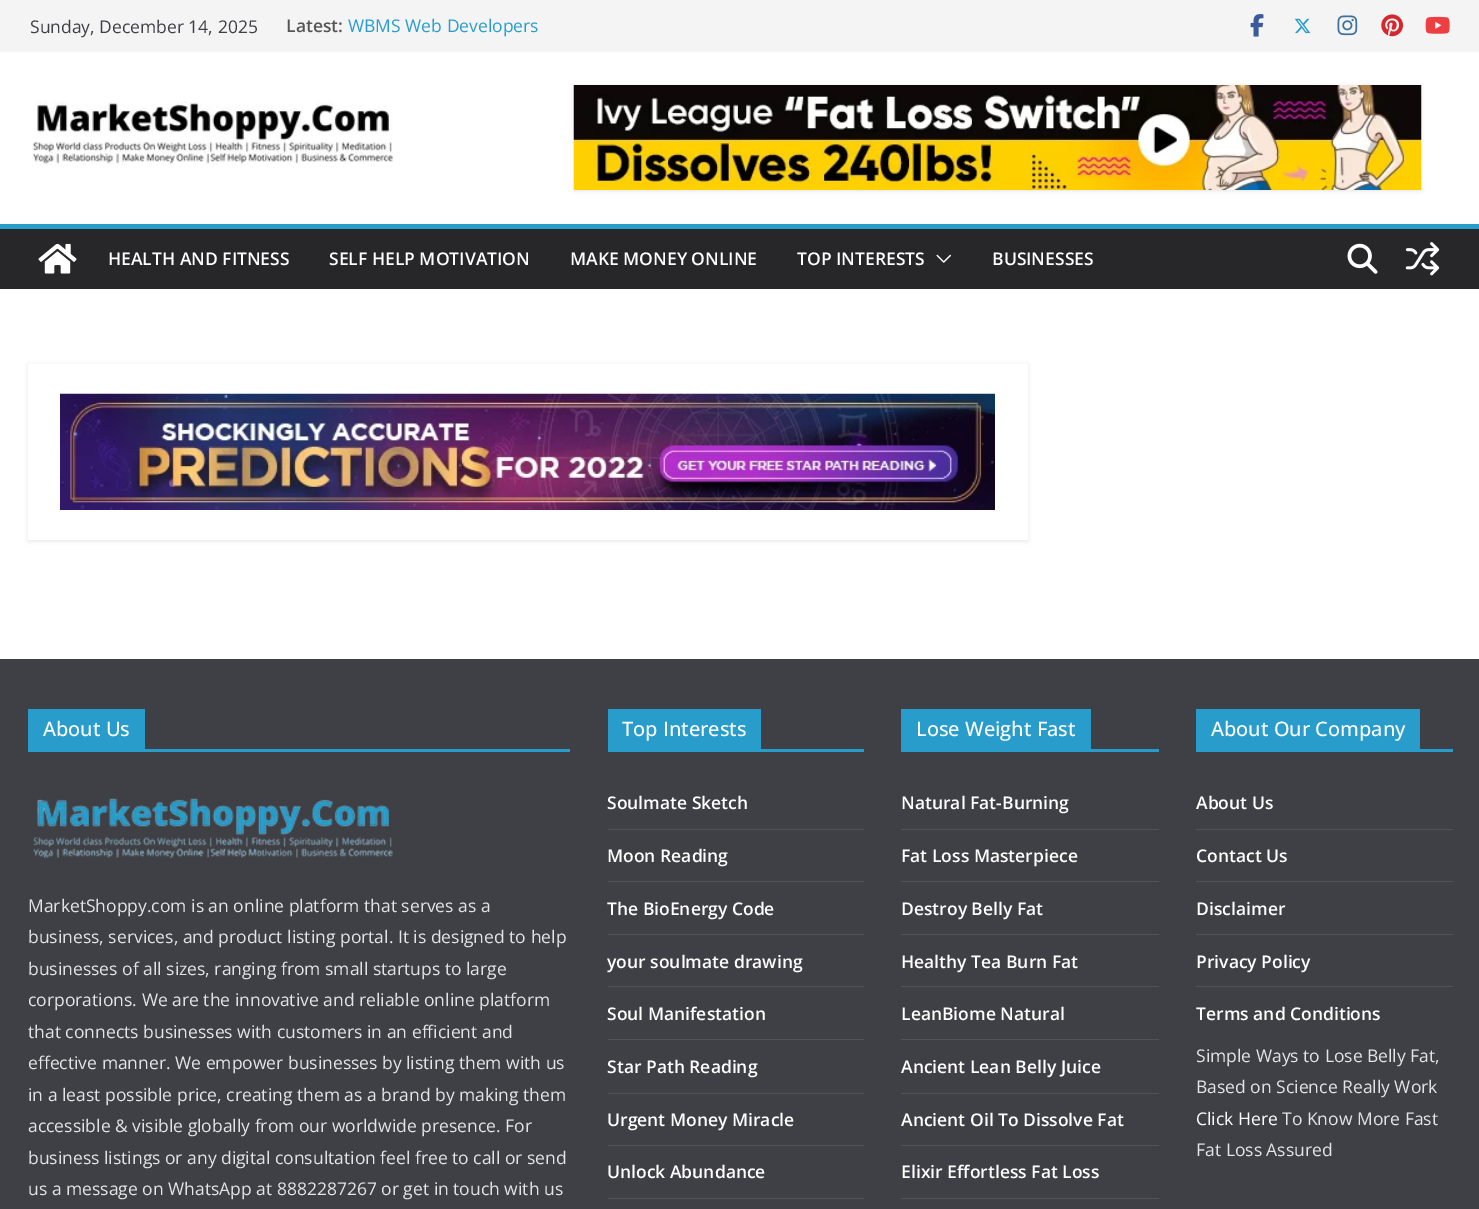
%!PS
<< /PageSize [1479 1209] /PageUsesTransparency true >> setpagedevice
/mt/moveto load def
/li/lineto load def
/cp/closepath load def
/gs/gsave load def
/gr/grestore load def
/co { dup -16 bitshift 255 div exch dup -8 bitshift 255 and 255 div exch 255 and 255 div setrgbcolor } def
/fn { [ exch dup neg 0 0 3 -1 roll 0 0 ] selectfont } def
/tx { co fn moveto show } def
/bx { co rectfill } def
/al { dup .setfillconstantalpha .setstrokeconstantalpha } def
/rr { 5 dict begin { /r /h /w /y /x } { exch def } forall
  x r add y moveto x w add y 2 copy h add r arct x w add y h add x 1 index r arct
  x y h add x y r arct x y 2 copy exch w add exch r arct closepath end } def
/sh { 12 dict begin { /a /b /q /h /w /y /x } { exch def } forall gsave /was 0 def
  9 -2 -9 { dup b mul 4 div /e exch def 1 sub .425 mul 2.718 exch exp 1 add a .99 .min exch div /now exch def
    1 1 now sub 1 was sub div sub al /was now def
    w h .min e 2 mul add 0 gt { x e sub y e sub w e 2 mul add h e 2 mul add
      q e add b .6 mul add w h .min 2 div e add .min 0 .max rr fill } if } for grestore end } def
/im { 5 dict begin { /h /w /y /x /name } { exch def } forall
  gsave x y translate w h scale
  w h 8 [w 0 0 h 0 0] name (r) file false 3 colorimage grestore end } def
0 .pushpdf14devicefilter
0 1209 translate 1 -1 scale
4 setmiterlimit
0 0 1479 1209 16#FFFFFF bx
16#000000 co
0 0 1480 51 0 1 .1 sh
0 0 1479 51 16#F4F4F5 bx
(media/1.raw) 1250 14 14 23 im
(media/2.raw) 1294 18 17 16 im
(media/3.raw) 1337 15 21 21 im
(media/4.raw) 1381 14 23 23 im
(media/5.raw) 1425 16 25 18 im
(media/6.raw) 32 101 361 65 im
16#000000 co
574 86 847 105 0 2 .1 sh
(media/7.raw) 573 85 849 105 im
0 229 1479 60 16#27272A bx
0 224 1479 5 16#289DCC bx
(media/8.raw) 38 243 39 31 im
(media/9.raw) 936 254 15 9 im
(media/10.raw) 1347 243 31 31 im
(media/11.raw) 1405 242 35 34 im
gs
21 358 mt 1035 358 li 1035 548 li 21 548 li cp 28 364 mt 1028 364 li 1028 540 li 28 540 li cp eoclip newpath
16#000000 co
28 365 1000 176 0 2 .1 sh
gr
(media/12.raw) 60 393 935 117 im
0 659 1479 550 16#3F3F46 bx
28 749 542 3 16#289DCC bx
28 709 117 40 16#289DCC bx
(media/13.raw) 33 798 360 61 im
608 749 256 3 16#289DCC bx
608 709 153 40 16#289DCC bx
608 829 256 1 16#52525B bx
608 881 256 1 16#52525B bx
608 934 256 1 16#52525B bx
608 986 256 1 16#52525B bx
608 1039 256 1 16#52525B bx
608 1093 256 1 16#52525B bx
608 1145 256 1 16#52525B bx
608 1198 256 1 16#52525B bx
901 749 258 3 16#289DCC bx
901 709 190 40 16#289DCC bx
901 829 258 1 16#52525B bx
901 881 258 1 16#52525B bx
901 934 258 1 16#52525B bx
901 986 258 1 16#52525B bx
901 1039 258 1 16#52525B bx
901 1093 258 1 16#52525B bx
901 1145 258 1 16#52525B bx
901 1198 258 1 16#52525B bx
1196 749 257 3 16#289DCC bx
1196 709 224 40 16#289DCC bx
1196 829 257 1 16#52525B bx
1196 881 257 1 16#52525B bx
1196 934 257 1 16#52525B bx
1196 986 257 1 16#52525B bx
(Sunday, December 14, 2025) 30 33 /OpenSans-Regular 17.5 16#3F3F46 tx
(Latest:) 286 32 /OpenSans-SemiBold 17.5 16#555555 tx
(WBMS Web Developers) 348 32 /OpenSans-Regular 17.5 16#289DCC tx
(HEALTH AND FITNESS) 108 265 /OpenSans-SemiBold 17.5 16#FFFFFF tx
(SELF HELP MOTIVATION) 329 265 /OpenSans-SemiBold 17.5 16#FFFFFF tx
(MAKE MONEY ONLINE) 570 265 /OpenSans-SemiBold 17.5 16#FFFFFF tx
(TOP INTERESTS) 797 265 /OpenSans-SemiBold 17.5 16#FFFFFF tx
(BUSINESSES) 992 265 /OpenSans-SemiBold 17.5 16#FFFFFF tx
(About Us) 43 736 /OpenSans-Medium 20 16#FFFFFF tx
(MarketShoppy.com is an online platform that serves as a) 28 912 /OpenSans-Regular 17.5 16#E4E4E7 tx
(business, services, and product listing portal. It is designed to help) 28 943 /OpenSans-Regular 17.5 16#E4E4E7 tx
(businesses of all sizes, ranging from small startups to large) 28 975 /OpenSans-Regular 17.5 16#E4E4E7 tx
(corporations. We are the innovative and reliable online platform) 28 1006 /OpenSans-Regular 17.5 16#E4E4E7 tx
(that connects businesses with customers in an efficient and) 28 1038 /OpenSans-Regular 17.5 16#E4E4E7 tx
(effective manner. We empower businesses by listing them with us) 28 1069 /OpenSans-Regular 17.5 16#E4E4E7 tx
(in a least possible price, creating them as a brand by making them) 28 1101 /OpenSans-Regular 17.5 16#E4E4E7 tx
(accessible & visible globally from our worldwide presence. For) 28 1132 /OpenSans-Regular 17.5 16#E4E4E7 tx
(business listings or any digital consultation feel free to call or send) 28 1164 /OpenSans-Regular 17.5 16#E4E4E7 tx
(us a message on WhatsApp at 8882287267 or get in touch with us) 28 1195 /OpenSans-Regular 17.5 16#E4E4E7 tx
(Top Interests) 622 736 /OpenSans-Medium 20 16#FFFFFF tx
(Soulmate Sketch) 607 809 /OpenSans-SemiBold 17.5 16#FFFFFF tx
(Moon Reading) 607 862 /OpenSans-SemiBold 17.5 16#FFFFFF tx
(The BioEnergy Code) 607 915 /OpenSans-SemiBold 17.5 16#FFFFFF tx
(your soulmate drawing) 607 968 /OpenSans-SemiBold 17.5 16#FFFFFF tx
(Soul Manifestation) 607 1020 /OpenSans-SemiBold 17.5 16#FFFFFF tx
(Star Path Reading) 607 1073 /OpenSans-SemiBold 17.5 16#FFFFFF tx
(Urgent Money Miracle) 607 1126 /OpenSans-SemiBold 17.5 16#FFFFFF tx
(Unlock Abundance) 607 1178 /OpenSans-SemiBold 17.5 16#FFFFFF tx
(Lose Weight Fast) 916 736 /OpenSans-Medium 20 16#FFFFFF tx
(Natural Fat-Burning) 901 809 /OpenSans-SemiBold 17.5 16#FFFFFF tx
(Fat Loss Masterpiece) 901 862 /OpenSans-SemiBold 17.5 16#FFFFFF tx
(Destroy Belly Fat) 901 915 /OpenSans-SemiBold 17.5 16#FFFFFF tx
(Healthy Tea Burn Fat) 901 968 /OpenSans-SemiBold 17.5 16#FFFFFF tx
(LeanBiome Natural) 901 1020 /OpenSans-SemiBold 17.5 16#FFFFFF tx
(Ancient Lean Belly Juice) 901 1073 /OpenSans-SemiBold 17.5 16#FFFFFF tx
(Ancient Oil To Dissolve Fat) 901 1126 /OpenSans-SemiBold 17.5 16#FFFFFF tx
(Elixir Effortless Fat Loss) 901 1178 /OpenSans-SemiBold 17.5 16#FFFFFF tx
(About Our Company) 1211 736 /OpenSans-Medium 20 16#FFFFFF tx
(About Us) 1196 809 /OpenSans-SemiBold 17.5 16#FFFFFF tx
(Contact Us) 1196 862 /OpenSans-SemiBold 17.5 16#FFFFFF tx
(Disclaimer) 1196 915 /OpenSans-SemiBold 17.5 16#FFFFFF tx
(Privacy Policy) 1196 968 /OpenSans-SemiBold 17.5 16#FFFFFF tx
(Terms and Conditions) 1196 1020 /OpenSans-SemiBold 17.5 16#FFFFFF tx
(Simple Ways to Lose Belly Fat,) 1196 1062 /OpenSans-Regular 17.5 16#E4E4E7 tx
(Based on Science Really Work) 1196 1093 /OpenSans-Regular 17.5 16#E4E4E7 tx
(Click Here) 1196 1125 /OpenSans-Regular 17.5 16#FFFFFF tx
(To Know More Fast) 1282 1125 /OpenSans-Regular 17.5 16#E4E4E7 tx
(Fat Loss Assured) 1196 1156 /OpenSans-Regular 17.5 16#E4E4E7 tx
.poppdf14devicefilter showpage
